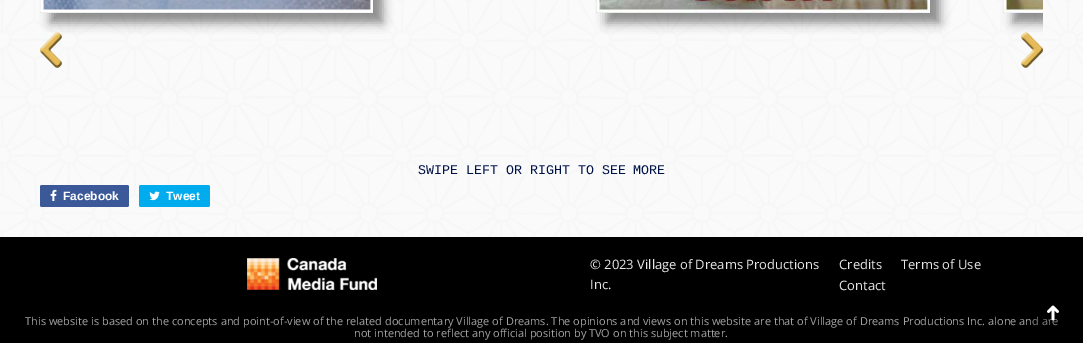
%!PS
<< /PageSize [1083 343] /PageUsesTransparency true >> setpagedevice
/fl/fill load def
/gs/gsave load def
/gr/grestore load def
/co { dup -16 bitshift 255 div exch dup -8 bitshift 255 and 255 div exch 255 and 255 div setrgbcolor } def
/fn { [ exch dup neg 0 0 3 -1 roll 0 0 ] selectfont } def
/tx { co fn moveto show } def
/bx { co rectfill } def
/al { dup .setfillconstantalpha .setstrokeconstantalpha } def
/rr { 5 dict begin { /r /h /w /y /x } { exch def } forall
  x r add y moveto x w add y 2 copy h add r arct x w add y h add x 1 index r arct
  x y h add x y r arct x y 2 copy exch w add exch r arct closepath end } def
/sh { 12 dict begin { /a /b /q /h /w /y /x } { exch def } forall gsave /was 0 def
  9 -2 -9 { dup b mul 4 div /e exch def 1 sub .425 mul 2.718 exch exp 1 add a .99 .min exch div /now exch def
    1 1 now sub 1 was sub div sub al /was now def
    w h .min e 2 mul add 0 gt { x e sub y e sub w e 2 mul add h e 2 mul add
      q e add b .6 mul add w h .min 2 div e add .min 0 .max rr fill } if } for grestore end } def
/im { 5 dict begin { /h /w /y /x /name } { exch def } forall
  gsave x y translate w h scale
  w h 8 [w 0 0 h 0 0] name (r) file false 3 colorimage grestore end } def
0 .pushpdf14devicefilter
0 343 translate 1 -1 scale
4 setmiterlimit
0 0 1083 343 16#FFFFFF bx
(media/1.raw) 0 0 1083 237 im
0.5 al
0 0 1083 237 16#FFFFFF bx
1 al
16#000000 co
50 -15 333 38 0 5 .44 sh
(media/2.raw) 40 0 333 13 im
606 -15 334 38 0 5 .44 sh
(media/3.raw) 596 0 334 13 im
gs
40 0 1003 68 rectclip
1013 -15 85 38 0 5 .44 sh
gr
(media/4.raw) 1003 0 40 13 im
(media/5.raw) 40 32 22 36 im
(media/6.raw) 1021 32 22 36 im
16#3B5998 co
40 185 89 22 2 rr fl
(media/7.raw) 50 189 7 12 im
16#00ACED co
139 185 71 22 2 rr fl
(media/8.raw) 149 191 11 10 im
0 237 1083 106 16#000000 bx
(media/9.raw) 247 258 130 32 im
(SWIPE LEFT OR RIGHT TO SEE MORE) 418 174 /LiberationMono-Regular 13.3 16#001349 tx
(Facebook) 63 200 /LiberationSans-Bold 12 16#FFFFFF tx
(Tweet) 166 200 /LiberationSans-Bold 12 16#FFFFFF tx
(© 2023 Village of Dreams Productions) 590 269 /OpenSans-Regular 13 16#E8E8E8 tx
(Inc.) 590 289 /OpenSans-Regular 13 16#E8E8E8 tx
(Credits) 839 269 /OpenSans-Regular 13 16#E8E8E8 tx
(Terms of Use) 901 269 /OpenSans-Regular 13 16#E8E8E8 tx
(Contact) 839 290 /OpenSans-Regular 13 16#E8E8E8 tx
(This website is based on the concepts and point-of-view of the related documentary Village of Dreams. The opinions and views on this website are that of Village of Dreams Productions Inc. alone and are) 25 325 /OpenSans-Regular 11 16#A2A2A2 tx
(not intended to reflect any official position by TVO on this subject matter.) 354 337 /OpenSans-Regular 11 16#A2A2A2 tx
0.2 al
16#000000 co
1033 293 40 40 3 rr fl
1 al
(media/10.raw) 1047 305 12 16 im
.poppdf14devicefilter showpage
